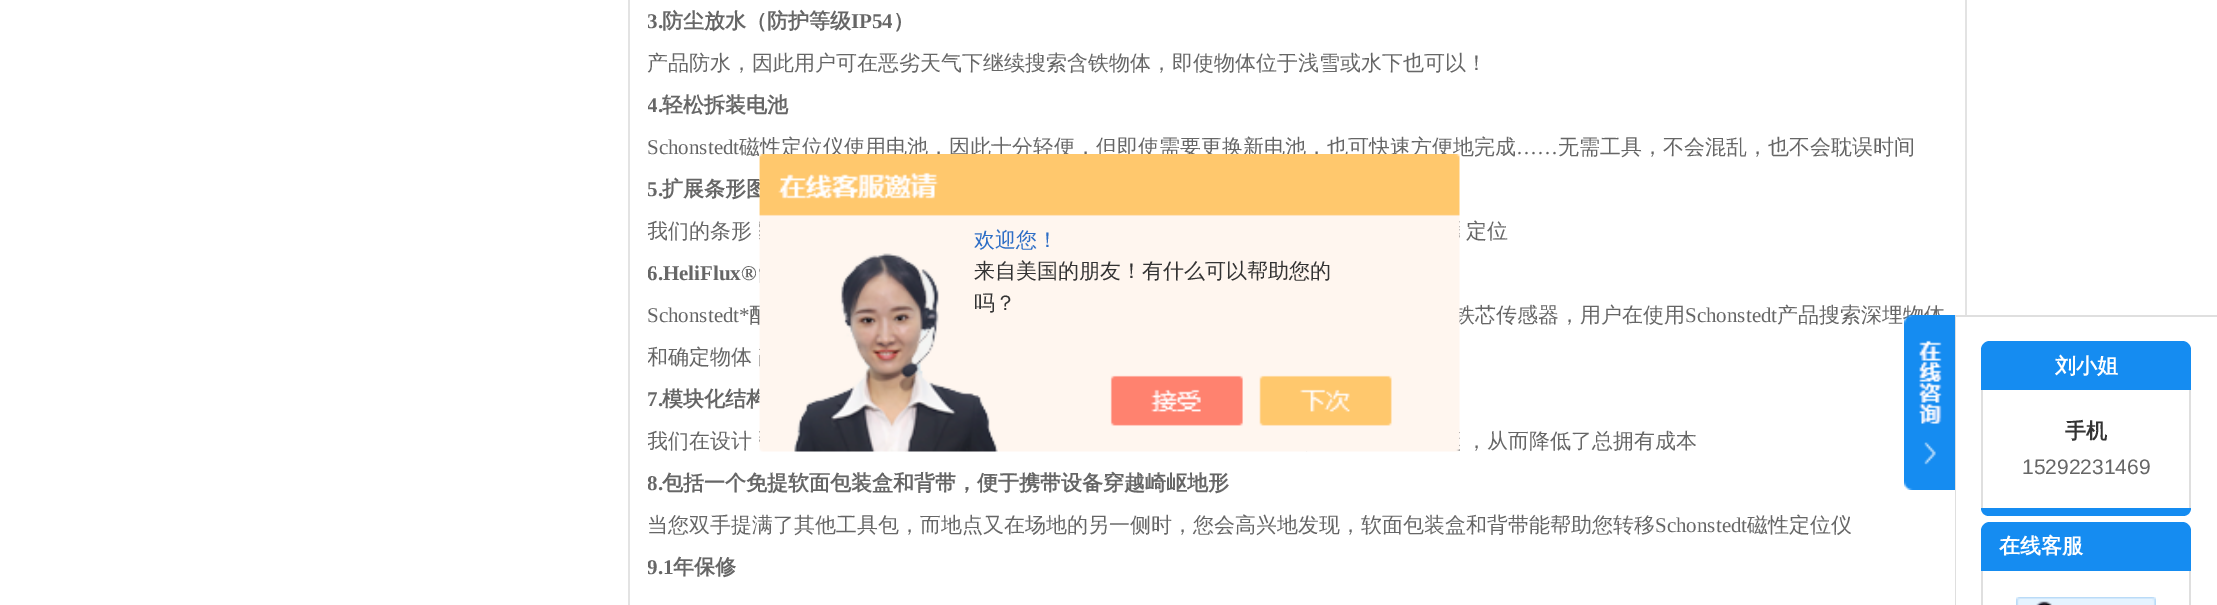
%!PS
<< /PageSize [2217 605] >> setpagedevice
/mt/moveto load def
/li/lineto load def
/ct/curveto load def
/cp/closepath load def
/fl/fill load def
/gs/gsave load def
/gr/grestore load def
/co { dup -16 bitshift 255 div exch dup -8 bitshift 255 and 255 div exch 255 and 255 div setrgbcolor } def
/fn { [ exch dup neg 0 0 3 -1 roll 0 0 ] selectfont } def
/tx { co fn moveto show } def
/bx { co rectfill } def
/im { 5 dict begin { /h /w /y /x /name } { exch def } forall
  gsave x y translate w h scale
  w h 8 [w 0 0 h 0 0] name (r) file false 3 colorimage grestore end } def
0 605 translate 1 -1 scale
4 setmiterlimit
0 0 2217 605 16#FFFFFF bx
1965 0 2 315 16#E3E3E3 bx
628 0 2 605 16#E3E3E3 bx
16#DFDFDF co
1955 315 mt 2217 315 li 2217 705 li 1964 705 li 1959 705 1955 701 1955 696 ct cp 1956 317 mt 2217 317 li 2217 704 li 1964 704 li 1960 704 1956 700 1956 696 ct cp eofill
16#158CF1 co
1990 341 mt 2182 341 li 2187 341 2191 345 2191 350 ct 2191 390 li 1981 390 li 1981 350 li 1981 345 1985 341 1990 341 ct cp fl
2189 390 2 118 16#DFDFDF bx
1981 390 2 118 16#DFDFDF bx
16#158CF1 co
1981 508 mt 2191 508 li 2191 512.5 2187.5 516 2183 516 ct 1989 516 li 1984.5 516 1981 512.5 1981 508 ct cp fl
1990 522 mt 2182 522 li 2187 522 2191 526 2191 531 ct 2191 571 li 1981 571 li 1981 531 li 1981 526 1985 522 1990 522 ct cp fl
2189 571 2 34 16#DFDFDF bx
1981 571 2 34 16#DFDFDF bx
(media/3.raw) 2016 597 140 8 im
gs
648 0 1300 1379 rectclip
(3.) 647 28 /LiberationSerif-Bold 21 16#666666 tx
gr
(防尘放水（防护等级) 662 28 /WenQuanYiZenHei-Bold 21 16#666666 tx
(IP54) 851 28 /LiberationSerif-Bold 21 16#666666 tx
(）) 893 28 /WenQuanYiZenHei-Bold 21 16#666666 tx
(产品防水，因此用户可在恶劣天气下继续搜索含铁物体，即使物体位于浅雪或水下也可以！) 647 70 /WenQuanYiZenHei-Medium 21 16#666666 tx
gs
648 0 1300 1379 rectclip
(4.) 647 112 /LiberationSerif-Bold 21 16#666666 tx
gr
(轻松拆装电池) 662 112 /WenQuanYiZenHei-Bold 21 16#666666 tx
(Schonstedt) 647 154 /LiberationSerif-Regular 21 16#666666 tx
(磁性定位仪使用电池，因此十分轻便，但即使需要更换新电池，也可快速方便地完成) 739 154 /WenQuanYiZenHei-Medium 21 16#666666 tx
(……) 1516 154 /LiberationSerif-Regular 21 16#666666 tx
(无需工具，不会混乱，也不会耽误时间) 1558 154 /WenQuanYiZenHei-Medium 21 16#666666 tx
gs
648 0 1300 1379 rectclip
(5.) 647 196 /LiberationSerif-Bold 21 16#666666 tx
gr
(扩展条形图) 662 196 /WenQuanYiZenHei-Bold 21 16#666666 tx
gs
648 0 1300 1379 rectclip
(我们的条形) 647 238 /WenQuanYiZenHei-Medium 21 16#666666 tx
gr
(定位) 1466 238 /WenQuanYiZenHei-Medium 21 16#666666 tx
gs
648 0 1300 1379 rectclip
(6.HeliFlux®) 647 280 /LiberationSerif-Bold 21 16#666666 tx
gr
(Schonstedt*) 647 322 /LiberationSerif-Regular 21 16#666666 tx
(配) 749 322 /WenQuanYiZenHei-Medium 21 16#666666 tx
(铁芯传感器，用户在使用) 1454 322 /WenQuanYiZenHei-Medium 21 16#666666 tx
(Schonstedt) 1685 322 /LiberationSerif-Regular 21 16#666666 tx
(产品搜索深埋物体) 1777 322 /WenQuanYiZenHei-Medium 21 16#666666 tx
gs
648 0 1300 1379 rectclip
(和确定物体) 647 364 /WenQuanYiZenHei-Medium 21 16#666666 tx
(7.) 647 406 /LiberationSerif-Bold 21 16#666666 tx
gr
(模块化结构) 662 406 /WenQuanYiZenHei-Bold 21 16#666666 tx
gs
648 0 1300 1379 rectclip
(我们在设计) 647 448 /WenQuanYiZenHei-Medium 21 16#666666 tx
gr
(，从而降低了总拥有成本) 1466 448 /WenQuanYiZenHei-Medium 21 16#666666 tx
gs
648 0 1300 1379 rectclip
(8.) 647 490 /LiberationSerif-Bold 21 16#666666 tx
gr
(包括一个免提软面包装盒和背带，便于携带设备穿越崎岖地形) 662 490 /WenQuanYiZenHei-Bold 21 16#666666 tx
(当您双手提满了其他工具包，而地点又在场地的另一侧时，您会高兴地发现，软面包装盒和背带能帮助您转移) 647 532 /WenQuanYiZenHei-Medium 21 16#666666 tx
(Schonstedt) 1655 532 /LiberationSerif-Regular 21 16#666666 tx
(磁性定位仪) 1747 532 /WenQuanYiZenHei-Medium 21 16#666666 tx
gs
648 0 1300 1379 rectclip
(9.1) 647 574 /LiberationSerif-Bold 21 16#666666 tx
gr
(年保修) 673 574 /WenQuanYiZenHei-Bold 21 16#666666 tx
(media/1.raw) 759 154 701 298 im
(欢迎您！) 974 247 /WenQuanYiZenHei-Medium 21 16#2E6EC6 tx
(来自美国的朋友！有什么可以帮助您的) 974 278 /WenQuanYiZenHei-Medium 21 16#333333 tx
(吗？) 974 310 /WenQuanYiZenHei-Medium 21 16#333333 tx
(media/2.raw) 1904 315 51 175 im
(刘小姐) 2055 373 /WenQuanYiZenHei-Bold 21 16#FFFFFF tx
(手机) 2065 438 /WenQuanYiZenHei-Bold 21 16#333333 tx
(15292231469) 2022 474 /LiberationSans-Regular 21 16#666666 tx
(在线客服) 1999 553 /WenQuanYiZenHei-Bold 21 16#FFFFFF tx
showpage
